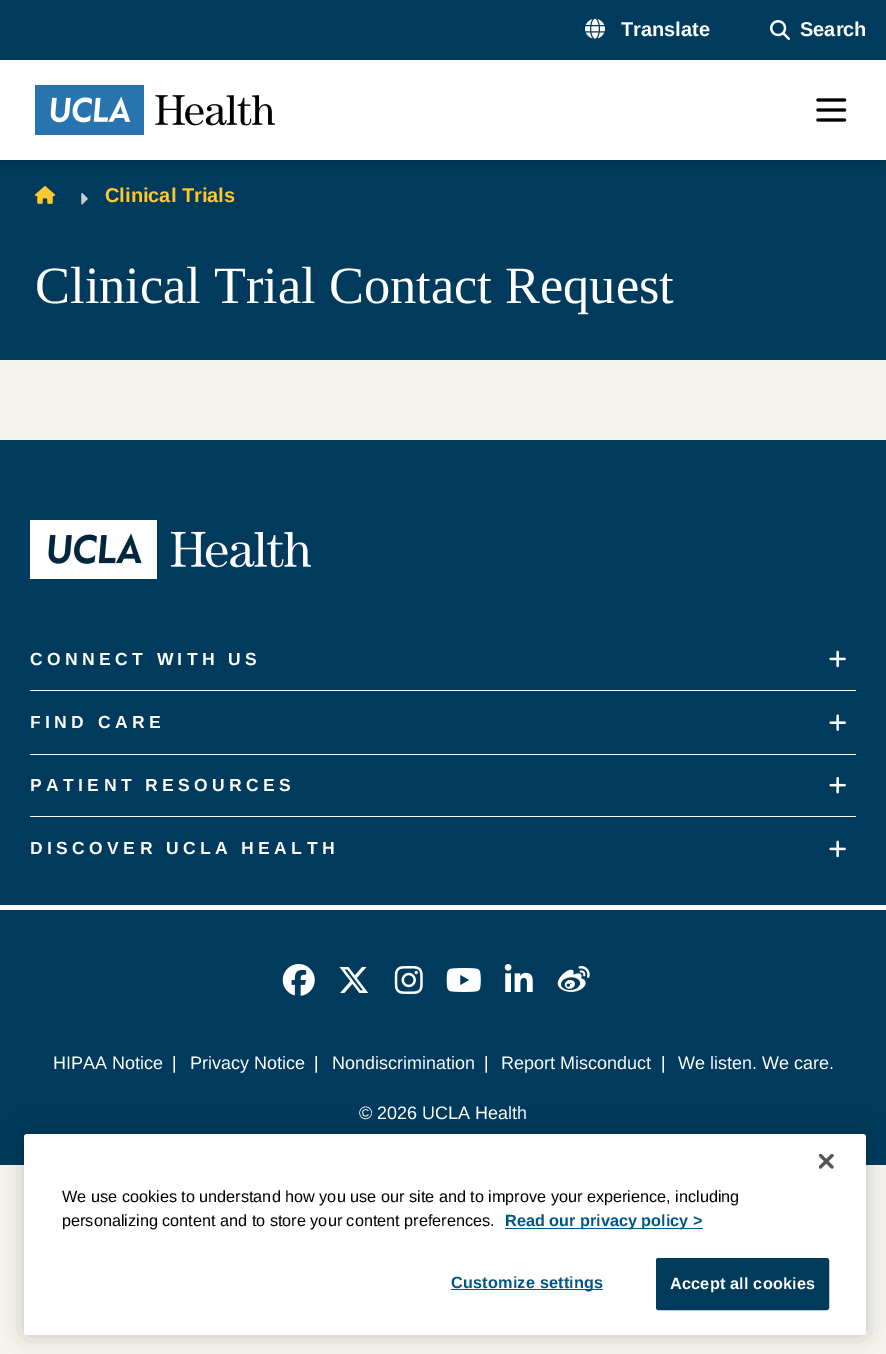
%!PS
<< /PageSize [886 1354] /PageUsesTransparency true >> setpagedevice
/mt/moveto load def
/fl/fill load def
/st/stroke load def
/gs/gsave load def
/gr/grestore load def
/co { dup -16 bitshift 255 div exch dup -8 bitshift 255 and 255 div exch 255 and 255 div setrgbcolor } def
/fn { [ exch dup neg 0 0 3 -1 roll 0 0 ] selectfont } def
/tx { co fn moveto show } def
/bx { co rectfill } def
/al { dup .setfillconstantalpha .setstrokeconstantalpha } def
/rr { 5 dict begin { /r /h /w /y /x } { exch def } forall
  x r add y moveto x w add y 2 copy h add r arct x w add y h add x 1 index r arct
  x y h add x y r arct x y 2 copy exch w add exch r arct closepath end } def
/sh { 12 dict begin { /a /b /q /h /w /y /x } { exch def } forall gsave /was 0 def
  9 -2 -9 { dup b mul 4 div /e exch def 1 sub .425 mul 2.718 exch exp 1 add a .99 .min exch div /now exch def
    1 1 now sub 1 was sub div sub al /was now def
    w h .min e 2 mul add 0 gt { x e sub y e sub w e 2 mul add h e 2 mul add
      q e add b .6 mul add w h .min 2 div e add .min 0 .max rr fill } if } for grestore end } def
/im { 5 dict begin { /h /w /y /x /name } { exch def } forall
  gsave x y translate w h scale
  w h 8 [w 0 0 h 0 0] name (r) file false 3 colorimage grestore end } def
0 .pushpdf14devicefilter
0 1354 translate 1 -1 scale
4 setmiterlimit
0 0 886 1354 16#F6F4EE bx
0 0 886 60 16#003A5C bx
(media/1.raw) 585 18 20 21 im
(media/2.raw) 770 20 20 20 im
0 160 886 200 16#003A5C bx
16#000000 co
3 65 881 95 0 2.5 .1 sh
1 66 884 98 0 4 .1 sh
0 60 886 100 16#FFFFFF bx
(media/3.raw) 35 85 240 50 im
(media/4.raw) 816 98 31 24 im
(media/5.raw) 35 186 20 18 im
(media/6.raw) 81 193 7 12 im
0 440 886 725 16#003A5C bx
(media/7.raw) 30 520 281 59 im
(media/8.raw) 829 650 17 18 im
30 690 826 1 16#FFFFFF bx
(media/9.raw) 829 714 17 17 im
30 754 826 1 16#FFFFFF bx
(media/10.raw) 829 776 17 18 im
30 816 826 1 16#FFFFFF bx
(media/8.raw) 829 840 17 18 im
0 905 886 5 16#FFFFFF bx
(media/11.raw) 282 964 33 32 im
(media/12.raw) 339 967 30 26 im
(media/13.raw) 394 966 29 28 im
(media/14.raw) 446 968 35 24 im
(media/15.raw) 504 964 29 28 im
(media/16.raw) 557 966 33 26 im
16#000000 co
24 1134 842 201 3 11 .2 sh
16#FFFFFF co
24 1134 842 201 3 rr fl
(media/17.raw) 819 1154 15 15 im
505 1228 198 1 16#005587 bx
451 1289 152 1 16#005587 bx
16#003B5C co
656.5 1258.5 172 51 2 rr gs fl gr
st
(Translate) 621 36 /LiberationSans-Bold 20 16#FFFFFF tx
(Search) 800 36 /LiberationSans-Bold 20 16#FFFFFF tx
(Clinical Trials) 105 202 /LiberationSans-Bold 20 16#FFC72E tx
(Clinical Trial Contact Request) 35 303 /LiberationSerif-Regular 52.4 16#FFFFFF tx
/LiberationSans-Bold 17.5 fn
30 665 mt 4.4 0 (CONNECT WITH US) ashow
30 728 mt 4.4 0 (FIND CARE) ashow
30 791 mt 4.4 0 (PATIENT RESOURCES) ashow
30 854 mt 4.4 0 (DISCOVER UCLA HEALTH) ashow
(HIPAA Notice) 53 1069 /LiberationSans-Regular 18 16#FFFFFF tx
(|) 172 1069 /LiberationSans-Regular 18 16#FFFFFF tx
(Privacy Notice) 190 1069 /LiberationSans-Regular 18 16#FFFFFF tx
(|) 314 1069 /LiberationSans-Regular 18 16#FFFFFF tx
(Nondiscrimination) 332 1069 /LiberationSans-Regular 18 16#FFFFFF tx
(|) 484 1069 /LiberationSans-Regular 18 16#FFFFFF tx
(Report Misconduct) 501 1069 /LiberationSans-Regular 18 16#FFFFFF tx
(|) 661 1069 /LiberationSans-Regular 18 16#FFFFFF tx
(We listen. We care.) 678 1069 /LiberationSans-Regular 18 16#FFFFFF tx
(© 2026 UCLA Health) 359 1119 /LiberationSans-Regular 18 16#FFFFFF tx
(We use cookies to understand how you use our site and to improve your experience, including) 62 1202 /LiberationSans-Regular 16.25 16#000000 tx
(personalizing content and to store your content preferences.) 62 1226 /LiberationSans-Regular 16.25 16#000000 tx
(Read our privacy policy >) 505 1226 /LiberationSans-Bold 16.25 16#005587 tx
451 1288 mt .2 0 (Customize settings) ashow
16#FFFFFF co
670 1289 mt .2 0 (Accept all cookies) ashow
.poppdf14devicefilter showpage
